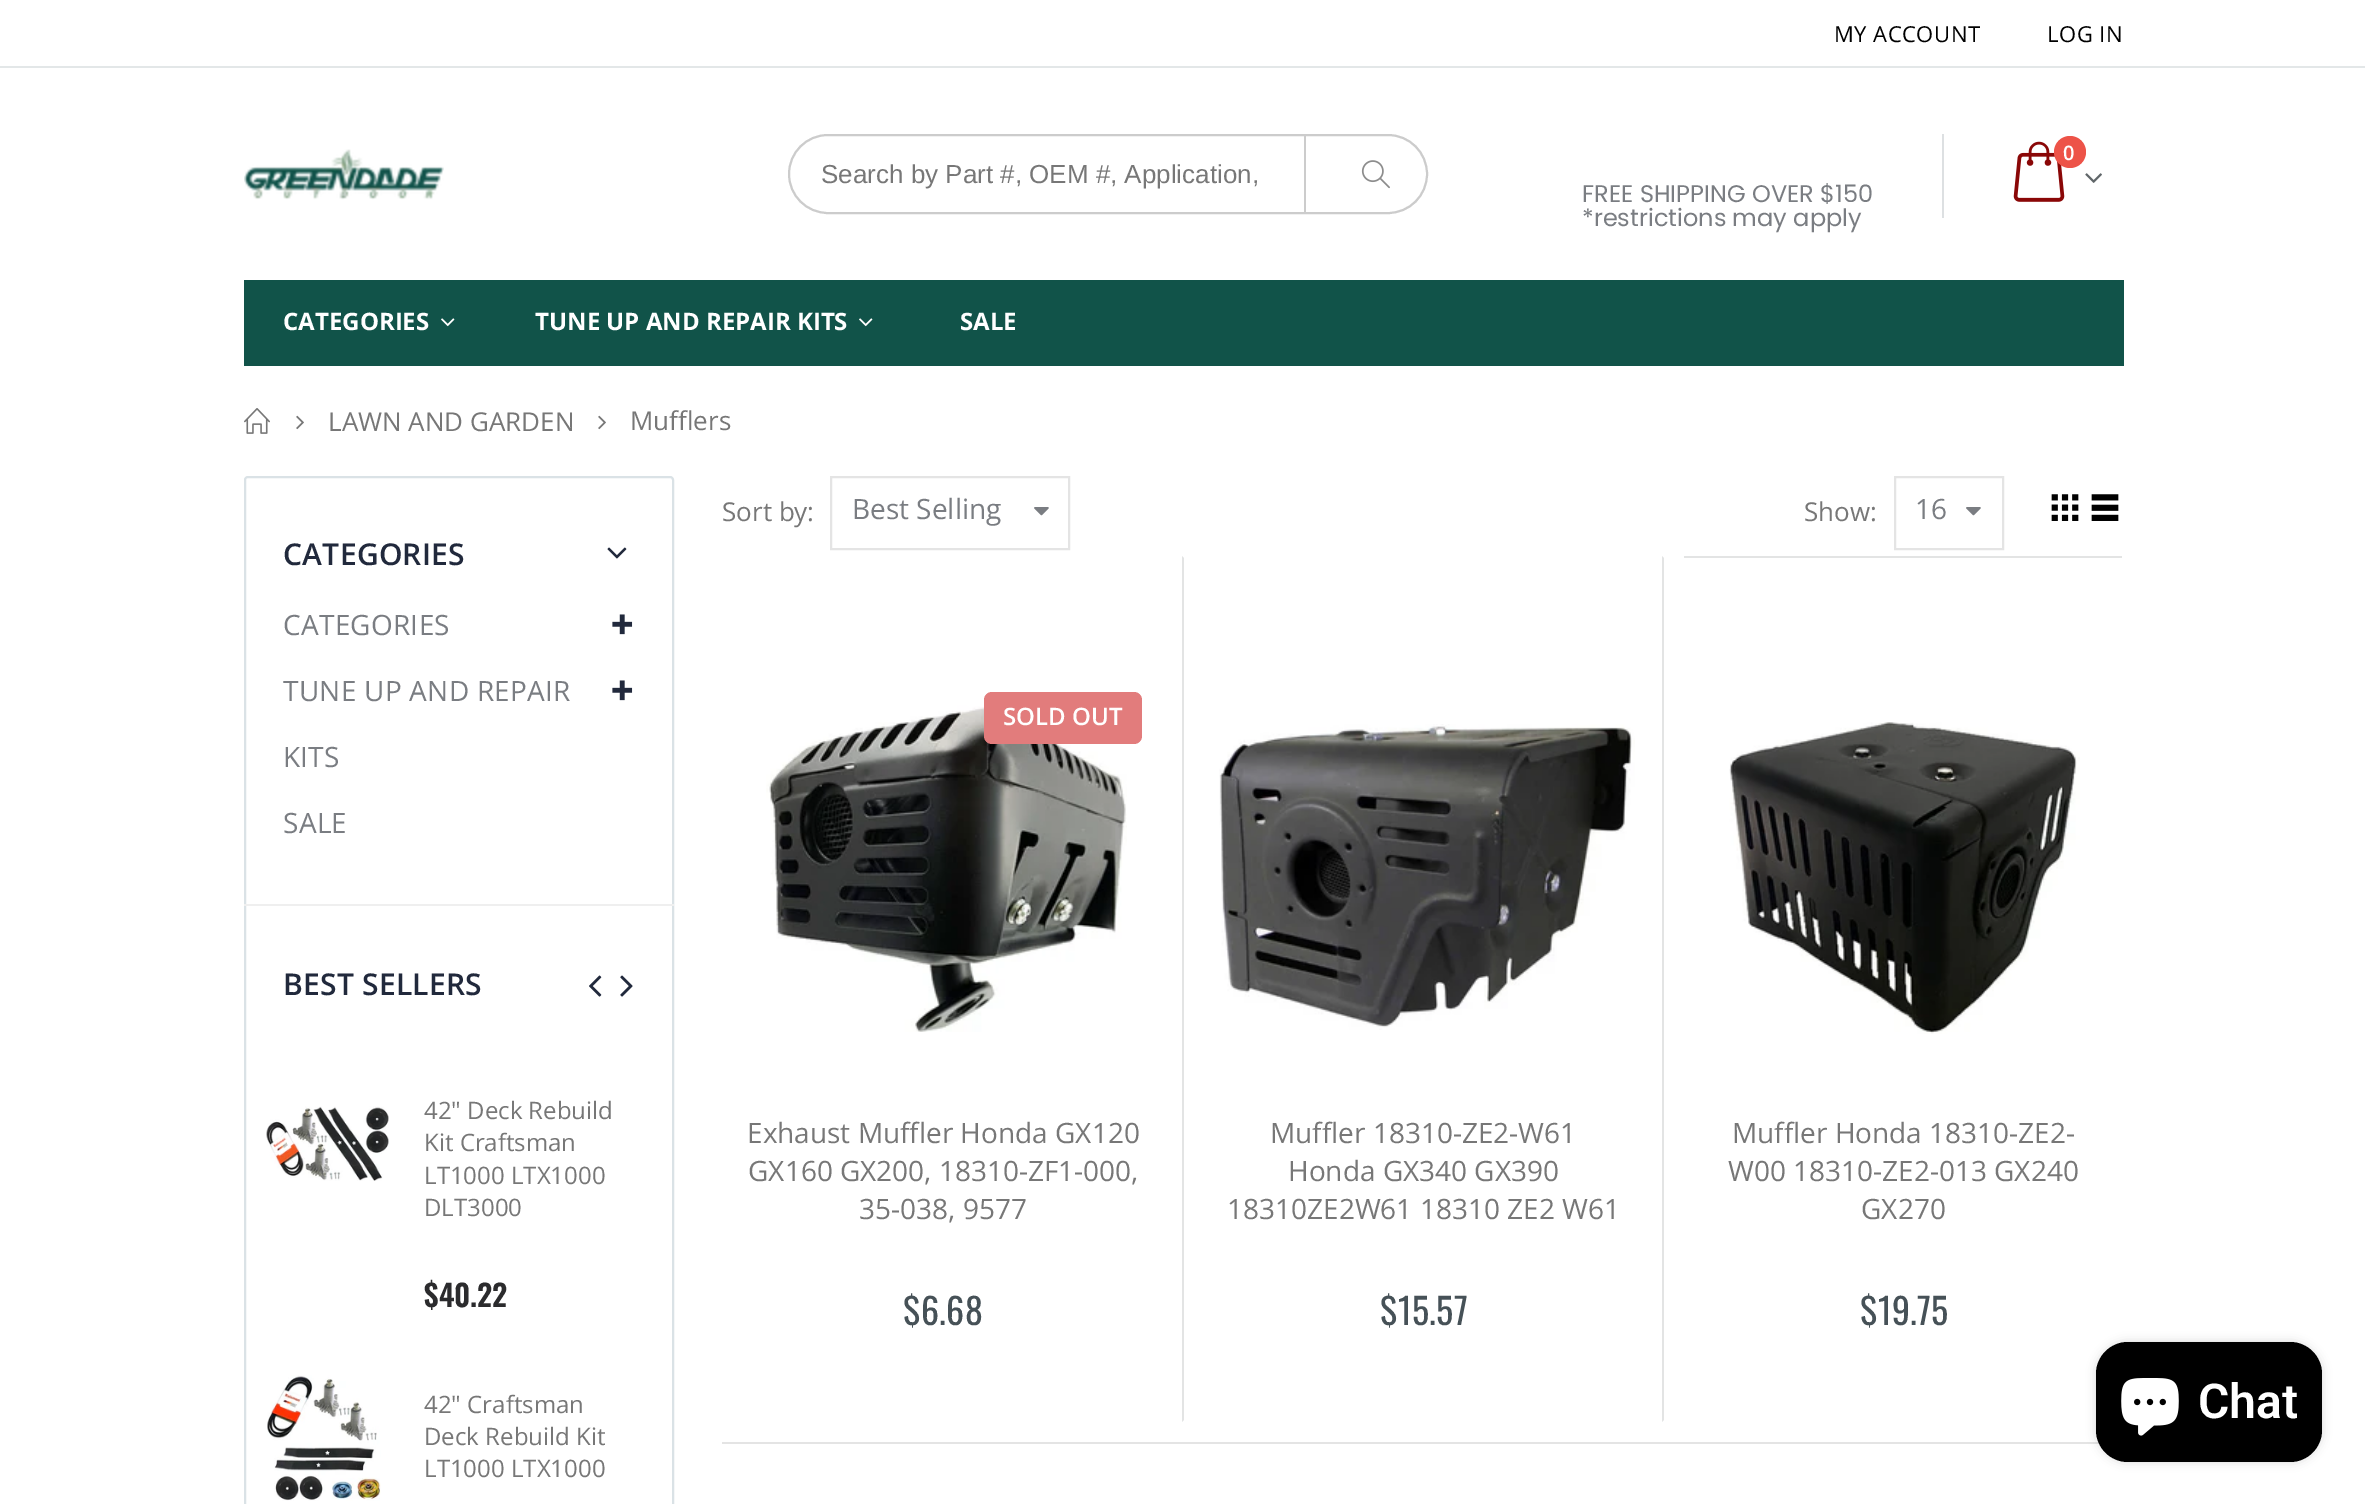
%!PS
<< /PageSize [2365 1504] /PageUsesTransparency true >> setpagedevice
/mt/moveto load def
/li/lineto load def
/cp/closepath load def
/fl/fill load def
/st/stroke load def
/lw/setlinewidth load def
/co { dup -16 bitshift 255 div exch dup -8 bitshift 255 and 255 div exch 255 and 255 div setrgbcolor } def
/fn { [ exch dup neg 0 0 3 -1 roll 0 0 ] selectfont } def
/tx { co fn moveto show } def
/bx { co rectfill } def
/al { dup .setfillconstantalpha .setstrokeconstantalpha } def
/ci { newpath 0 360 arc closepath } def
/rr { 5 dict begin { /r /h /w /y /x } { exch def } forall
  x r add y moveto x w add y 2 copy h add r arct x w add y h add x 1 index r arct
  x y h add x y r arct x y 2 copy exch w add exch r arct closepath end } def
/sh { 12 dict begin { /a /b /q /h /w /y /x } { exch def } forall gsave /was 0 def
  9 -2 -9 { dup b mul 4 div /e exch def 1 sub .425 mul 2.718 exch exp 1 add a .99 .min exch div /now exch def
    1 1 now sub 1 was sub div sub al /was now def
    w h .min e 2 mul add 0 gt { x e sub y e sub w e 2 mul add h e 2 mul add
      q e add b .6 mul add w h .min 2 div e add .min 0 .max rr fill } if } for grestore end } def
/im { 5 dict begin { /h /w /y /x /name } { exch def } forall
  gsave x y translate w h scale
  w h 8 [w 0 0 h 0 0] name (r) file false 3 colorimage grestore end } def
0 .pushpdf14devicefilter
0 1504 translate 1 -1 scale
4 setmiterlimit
0 0 2365 1504 16#FFFFFF bx
0 66 2365 2 16#E3E7E8 bx
(media/1.raw) 244 149 200 51 im
16#CCCCCC co
2 lw
789 135 638 78 39 rr st
1304 136 2 76 16#CCCCCC bx
(media/2.raw) 1361 160 29 29 im
(media/3.raw) 2013 141 52 61 im
16#ED5348 co
2070 152 16 ci fl
(media/4.raw) 2085 173 17 10 im
1942 134 2 84 16#DDE0E2 bx
244 280 1880 86 16#115349 bx
(media/5.raw) 441 318 14 9 im
(media/5.raw) 859 318 14 9 im
(media/6.raw) 244 408 26 26 im
(media/7.raw) 296 415 8 15 im
(media/7.raw) 598 415 8 15 im
16#DAE2E6 co
245 477 428 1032 3 rr st
(media/8.raw) 607 547 20 12 im
244 904 430 2 16#EFEFEF bx
(media/9.raw) 612 614 21 21 im
(media/9.raw) 612 680 21 21 im
(media/10.raw) 589 975 13 22 im
(media/11.raw) 620 975 13 22 im
(media/12.raw) 266 1106 123 75 im
(media/13.raw) 267 1375 114 126 im
16#E4E4E4 co
831 477 238 72 rectstroke
(media/14.raw) 1034 507 15 9 im
1895 477 108 72 rectstroke
(media/14.raw) 1966 507 15 9 im
(media/15.raw) 2051 494 28 27 im
(media/16.raw) 2091 494 28 27 im
(media/17.raw) 766 705 361 327 im
16#E27C7C co
984 692 158 52 8 rr fl
16#E3E4E4 co
1182 1422 mt 1182 556 li 1184 558 li 1184 1420 li cp fl
(media/18.raw) 1219 724 416 306 im
1662 1422 mt 1662 556 li 1664 558 li 1664 1420 li cp fl
1684 556 438 2 16#E3E4E4 bx
(media/19.raw) 1729 722 351 312 im
722 1442 1378 2 16#E4E4E4 bx
16#000000 co
2096 1342 226 120 32 5 .15 sh
2096 1342 226 120 32 rr fl
(media/20.raw) 2121 1378 58 58 im
/OpenSans-Regular 22 fn
1834 42 mt .5 0 (MY ACCOUNT) ashow
2047 42 mt .5 0 (LOG IN) ashow
(Search by Part #, OEM #, Application,) 821 183 /LiberationSans-Regular 26 16#777777 tx
(0) 2063 160 /OpenSans-SemiBold 20 16#FFFFFF tx
(FREE SHIPPING OVER $150) 1582 202 /Poppins-Regular 24 16#7A7D82 tx
(*restrictions may apply) 1582 226 /Poppins-Regular 24 16#7A7D82 tx
(CATEGORIES) 283 330 /OpenSans-Bold 24 16#FFFFFF tx
(TUNE UP AND REPAIR KITS) 535 330 /OpenSans-Bold 24 16#FFFFFF tx
(SALE) 960 330 /OpenSans-Bold 24 16#FFFFFF tx
(LAWN AND GARDEN) 328 431 /OpenSans-Regular 26 16#777777 tx
(Mufflers) 630 430 /OpenSans-Regular 26 16#777777 tx
/OpenSans-SemiBold 30 fn
16#21293C co
283 565 mt .25 0 (CATEGORIES) ashow
/OpenSans-Regular 28 fn
16#7A7D82 co
283 635 mt .25 0 (CATEGORIES) ashow
283 701 mt .25 0 (TUNE UP AND REPAIR) ashow
283 767 mt .25 0 (KITS) ashow
283 833 mt .25 0 (SALE) ashow
/OpenSans-SemiBold 30 fn
16#21293C co
283 995 mt .25 0 (BEST SELLERS) ashow
(42" Deck Rebuild) 424 1119 /OpenSans-Regular 24 16#777777 tx
(Kit Craftsman) 424 1151 /OpenSans-Regular 24 16#777777 tx
(LT1000 LTX1000) 424 1184 /OpenSans-Regular 24 16#777777 tx
(DLT3000) 424 1216 /OpenSans-Regular 24 16#777777 tx
($40.22) 424 1307 /Oswald-SemiBold 30 16#2B2B2D tx
(42" Craftsman) 424 1413 /OpenSans-Regular 24 16#777777 tx
(Deck Rebuild Kit) 424 1445 /OpenSans-Regular 24 16#777777 tx
(LT1000 LTX1000) 424 1477 /OpenSans-Regular 24 16#777777 tx
(Sort by:) 722 521 /OpenSans-Regular 26 16#777777 tx
(Best Selling) 852 519 /OpenSans-Regular 28 16#7A7D82 tx
(Show:) 1804 521 /OpenSans-Regular 26 16#777777 tx
(16) 1915 519 /OpenSans-Regular 28 16#7A7D82 tx
(SOLD OUT) 1003 725 /OpenSans-SemiBold 24 16#FFFFFF tx
(Exhaust Muffler Honda GX120) 747 1143 /OpenSans-Regular 28 16#777777 tx
(GX160 GX200, 18310-ZF1-000,) 748 1181 /OpenSans-Regular 28 16#777777 tx
(35-038, 9577) 859 1219 /OpenSans-Regular 28 16#777777 tx
/Oswald-Regular 36 fn
16#465157 co
903 1325 mt .25 0 ($6.68) ashow
(Muffler 18310-ZE2-W61) 1270 1143 /OpenSans-Regular 28 16#777777 tx
(Honda GX340 GX390) 1288 1181 /OpenSans-Regular 28 16#777777 tx
(18310ZE2W61 18310 ZE2 W61) 1227 1219 /OpenSans-Regular 28 16#777777 tx
/Oswald-Regular 36 fn
16#465157 co
1380 1325 mt .25 0 ($15.57) ashow
(Muffler Honda 18310-ZE2-) 1732 1143 /OpenSans-Regular 28 16#777777 tx
(W00 18310-ZE2-013 GX240) 1728 1181 /OpenSans-Regular 28 16#777777 tx
(GX270) 1861 1219 /OpenSans-Regular 28 16#777777 tx
/Oswald-Regular 36 fn
16#465157 co
1860 1325 mt .25 0 ($19.75) ashow
(Chat) 2198 1418 /Roboto-SemiBold 48 16#FFFFFF tx
.poppdf14devicefilter showpage
